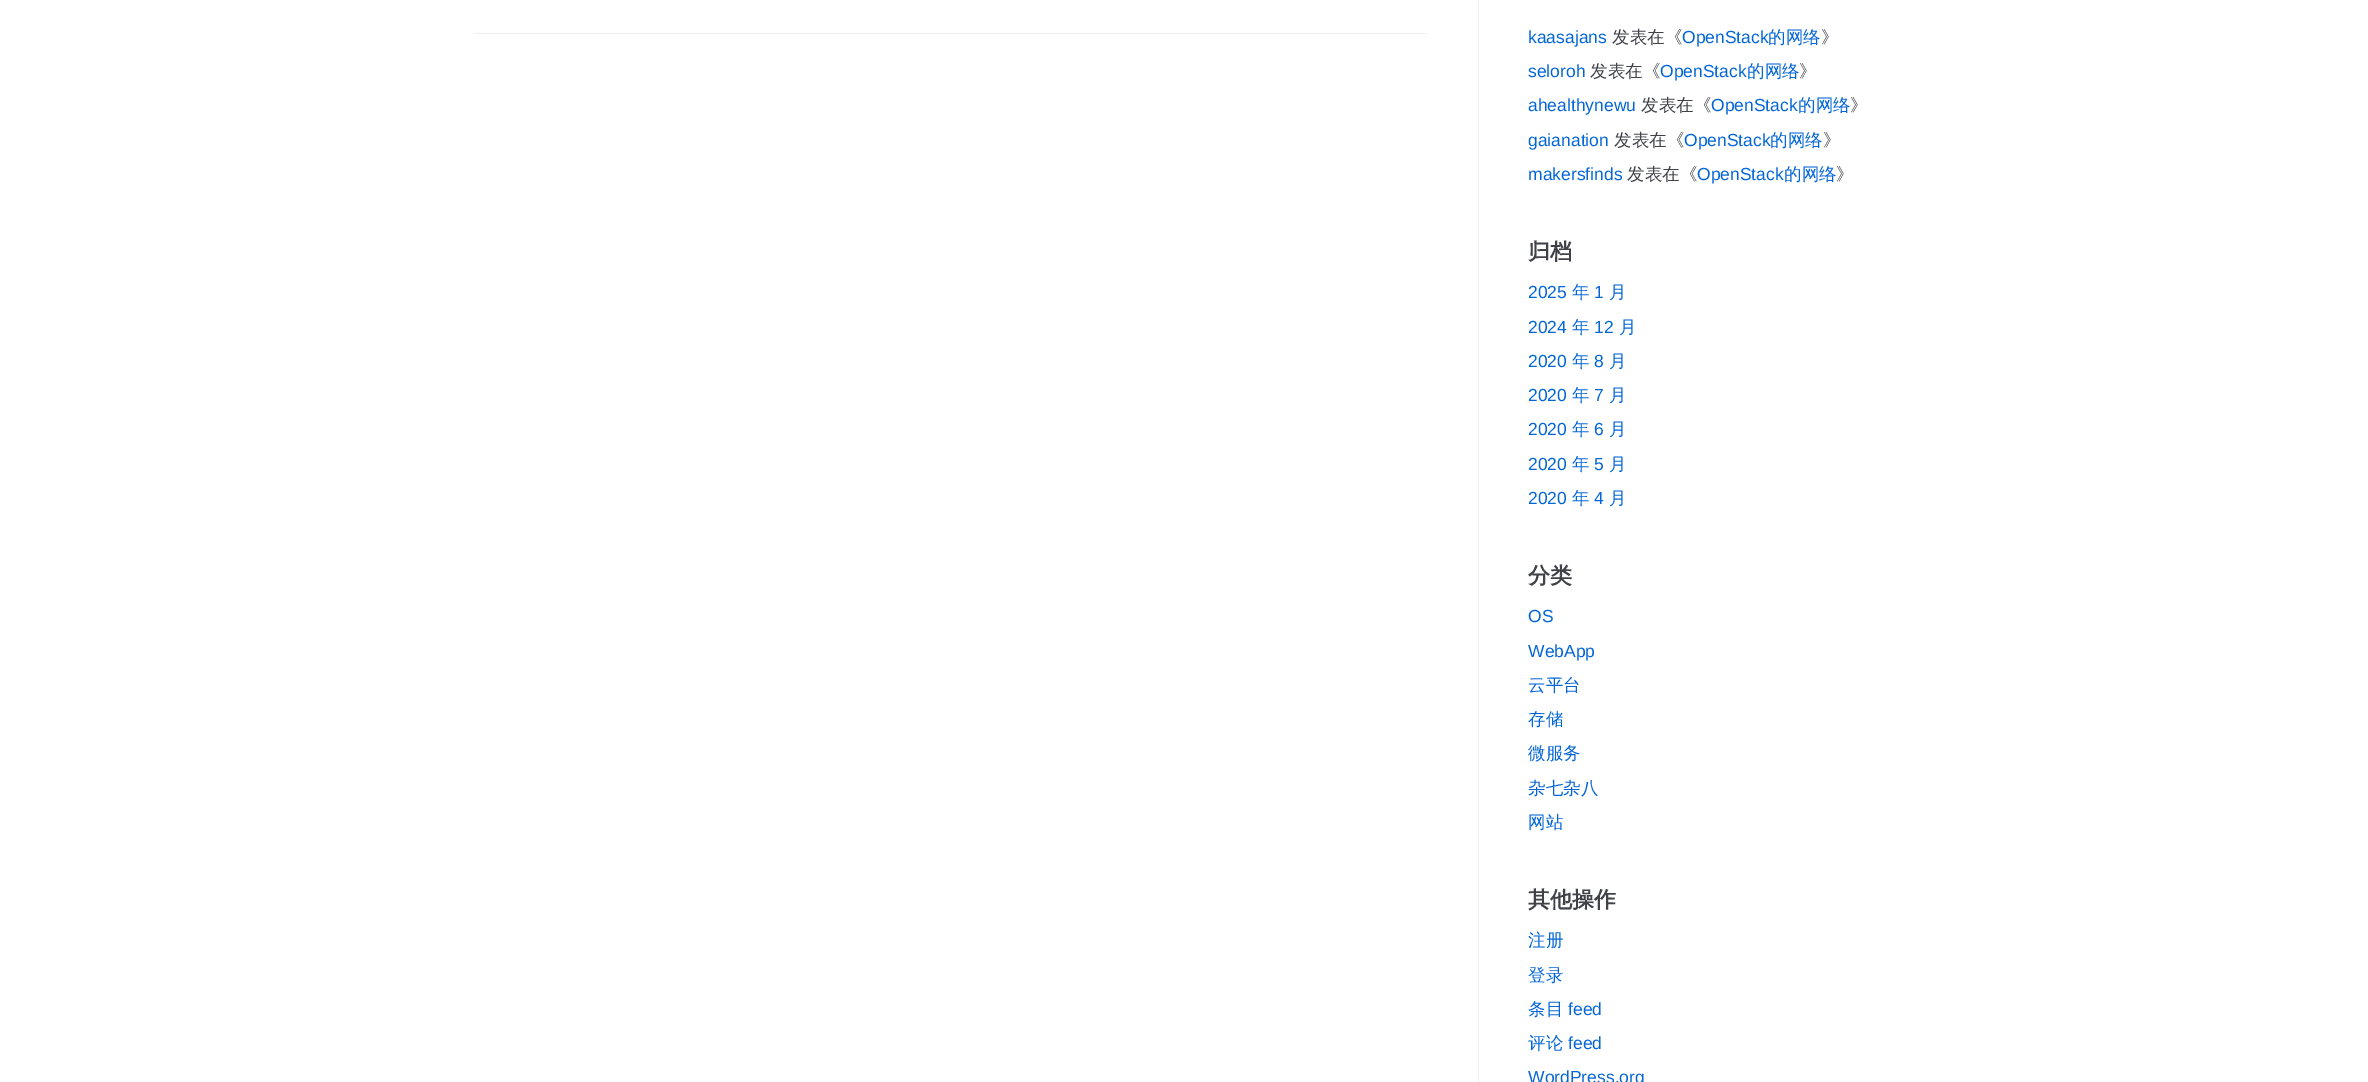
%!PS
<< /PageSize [2368 1082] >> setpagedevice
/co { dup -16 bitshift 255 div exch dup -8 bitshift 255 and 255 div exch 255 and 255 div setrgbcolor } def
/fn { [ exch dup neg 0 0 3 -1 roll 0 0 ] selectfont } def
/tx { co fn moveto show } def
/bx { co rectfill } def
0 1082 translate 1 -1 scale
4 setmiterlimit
0 0 2368 1082 16#FFFFFF bx
473 33 955 1 16#F0F0F0 bx
1478 0 1 1082 16#F0F0F0 bx
(kaasajans) 1528 43 /LiberationSans-Regular 17.5 16#0366D6 tx
(发表在《) 1612 43 /WenQuanYiZenHei-Medium 17.5 16#404248 tx
(OpenStack) 1682 43 /LiberationSans-Regular 17.5 16#0366D6 tx
(的网络) 1768 43 /WenQuanYiZenHei-Medium 17.5 16#0366D6 tx
(》) 1821 43 /WenQuanYiZenHei-Medium 17.5 16#404248 tx
(seloroh) 1528 77 /LiberationSans-Regular 17.5 16#0366D6 tx
(发表在《) 1590 77 /WenQuanYiZenHei-Medium 17.5 16#404248 tx
(OpenStack) 1660 77 /LiberationSans-Regular 17.5 16#0366D6 tx
(的网络) 1747 77 /WenQuanYiZenHei-Medium 17.5 16#0366D6 tx
(》) 1799 77 /WenQuanYiZenHei-Medium 17.5 16#404248 tx
(ahealthynewu) 1528 111 /LiberationSans-Regular 17.5 16#0366D6 tx
(发表在《) 1641 111 /WenQuanYiZenHei-Medium 17.5 16#404248 tx
(OpenStack) 1711 111 /LiberationSans-Regular 17.5 16#0366D6 tx
(的网络) 1798 111 /WenQuanYiZenHei-Medium 17.5 16#0366D6 tx
(》) 1850 111 /WenQuanYiZenHei-Medium 17.5 16#404248 tx
(gaianation) 1528 146 /LiberationSans-Regular 17.5 16#0366D6 tx
(发表在《) 1614 146 /WenQuanYiZenHei-Medium 17.5 16#404248 tx
(OpenStack) 1684 146 /LiberationSans-Regular 17.5 16#0366D6 tx
(的网络) 1770 146 /WenQuanYiZenHei-Medium 17.5 16#0366D6 tx
(》) 1823 146 /WenQuanYiZenHei-Medium 17.5 16#404248 tx
(makersfinds) 1528 180 /LiberationSans-Regular 17.5 16#0366D6 tx
(发表在《) 1627 180 /WenQuanYiZenHei-Medium 17.5 16#404248 tx
(OpenStack) 1697 180 /LiberationSans-Regular 17.5 16#0366D6 tx
(的网络) 1784 180 /WenQuanYiZenHei-Medium 17.5 16#0366D6 tx
(》) 1836 180 /WenQuanYiZenHei-Medium 17.5 16#404248 tx
(归档) 1528 259 /WenQuanYiZenHei-Bold 22 16#404248 tx
(2025) 1528 298 /LiberationSans-Regular 17.5 16#0366D6 tx
(年) 1572 298 /WenQuanYiZenHei-Medium 17.5 16#0366D6 tx
(1) 1594 298 /LiberationSans-Regular 17.5 16#0366D6 tx
(月) 1609 298 /WenQuanYiZenHei-Medium 17.5 16#0366D6 tx
(2024) 1528 333 /LiberationSans-Regular 17.5 16#0366D6 tx
(年) 1572 333 /WenQuanYiZenHei-Medium 17.5 16#0366D6 tx
(12) 1594 333 /LiberationSans-Regular 17.5 16#0366D6 tx
(月) 1619 333 /WenQuanYiZenHei-Medium 17.5 16#0366D6 tx
(2020) 1528 367 /LiberationSans-Regular 17.5 16#0366D6 tx
(年) 1572 367 /WenQuanYiZenHei-Medium 17.5 16#0366D6 tx
(8) 1594 367 /LiberationSans-Regular 17.5 16#0366D6 tx
(月) 1609 367 /WenQuanYiZenHei-Medium 17.5 16#0366D6 tx
(2020) 1528 401 /LiberationSans-Regular 17.5 16#0366D6 tx
(年) 1572 401 /WenQuanYiZenHei-Medium 17.5 16#0366D6 tx
(7) 1594 401 /LiberationSans-Regular 17.5 16#0366D6 tx
(月) 1609 401 /WenQuanYiZenHei-Medium 17.5 16#0366D6 tx
(2020) 1528 435 /LiberationSans-Regular 17.5 16#0366D6 tx
(年) 1572 435 /WenQuanYiZenHei-Medium 17.5 16#0366D6 tx
(6) 1594 435 /LiberationSans-Regular 17.5 16#0366D6 tx
(月) 1609 435 /WenQuanYiZenHei-Medium 17.5 16#0366D6 tx
(2020) 1528 470 /LiberationSans-Regular 17.5 16#0366D6 tx
(年) 1572 470 /WenQuanYiZenHei-Medium 17.5 16#0366D6 tx
(5) 1594 470 /LiberationSans-Regular 17.5 16#0366D6 tx
(月) 1609 470 /WenQuanYiZenHei-Medium 17.5 16#0366D6 tx
(2020) 1528 504 /LiberationSans-Regular 17.5 16#0366D6 tx
(年) 1572 504 /WenQuanYiZenHei-Medium 17.5 16#0366D6 tx
(4) 1594 504 /LiberationSans-Regular 17.5 16#0366D6 tx
(月) 1609 504 /WenQuanYiZenHei-Medium 17.5 16#0366D6 tx
(分类) 1528 583 /WenQuanYiZenHei-Bold 22 16#404248 tx
(OS) 1528 622 /LiberationSans-Regular 17.5 16#0366D6 tx
(WebApp) 1528 657 /LiberationSans-Regular 17.5 16#0366D6 tx
(云平台) 1528 691 /WenQuanYiZenHei-Medium 17.5 16#0366D6 tx
(存储) 1528 725 /WenQuanYiZenHei-Medium 17.5 16#0366D6 tx
(微服务) 1528 759 /WenQuanYiZenHei-Medium 17.5 16#0366D6 tx
(杂七杂八) 1528 794 /WenQuanYiZenHei-Medium 17.5 16#0366D6 tx
(网站) 1528 828 /WenQuanYiZenHei-Medium 17.5 16#0366D6 tx
(其他操作) 1528 907 /WenQuanYiZenHei-Bold 22 16#404248 tx
(注册) 1528 946 /WenQuanYiZenHei-Medium 17.5 16#0366D6 tx
(登录) 1528 981 /WenQuanYiZenHei-Medium 17.5 16#0366D6 tx
(条目) 1528 1015 /WenQuanYiZenHei-Medium 17.5 16#0366D6 tx
(feed) 1568 1015 /LiberationSans-Regular 17.5 16#0366D6 tx
(评论) 1528 1049 /WenQuanYiZenHei-Medium 17.5 16#0366D6 tx
(feed) 1568 1049 /LiberationSans-Regular 17.5 16#0366D6 tx
(WordPress.org) 1528 1083 /LiberationSans-Regular 17.5 16#0366D6 tx
showpage
